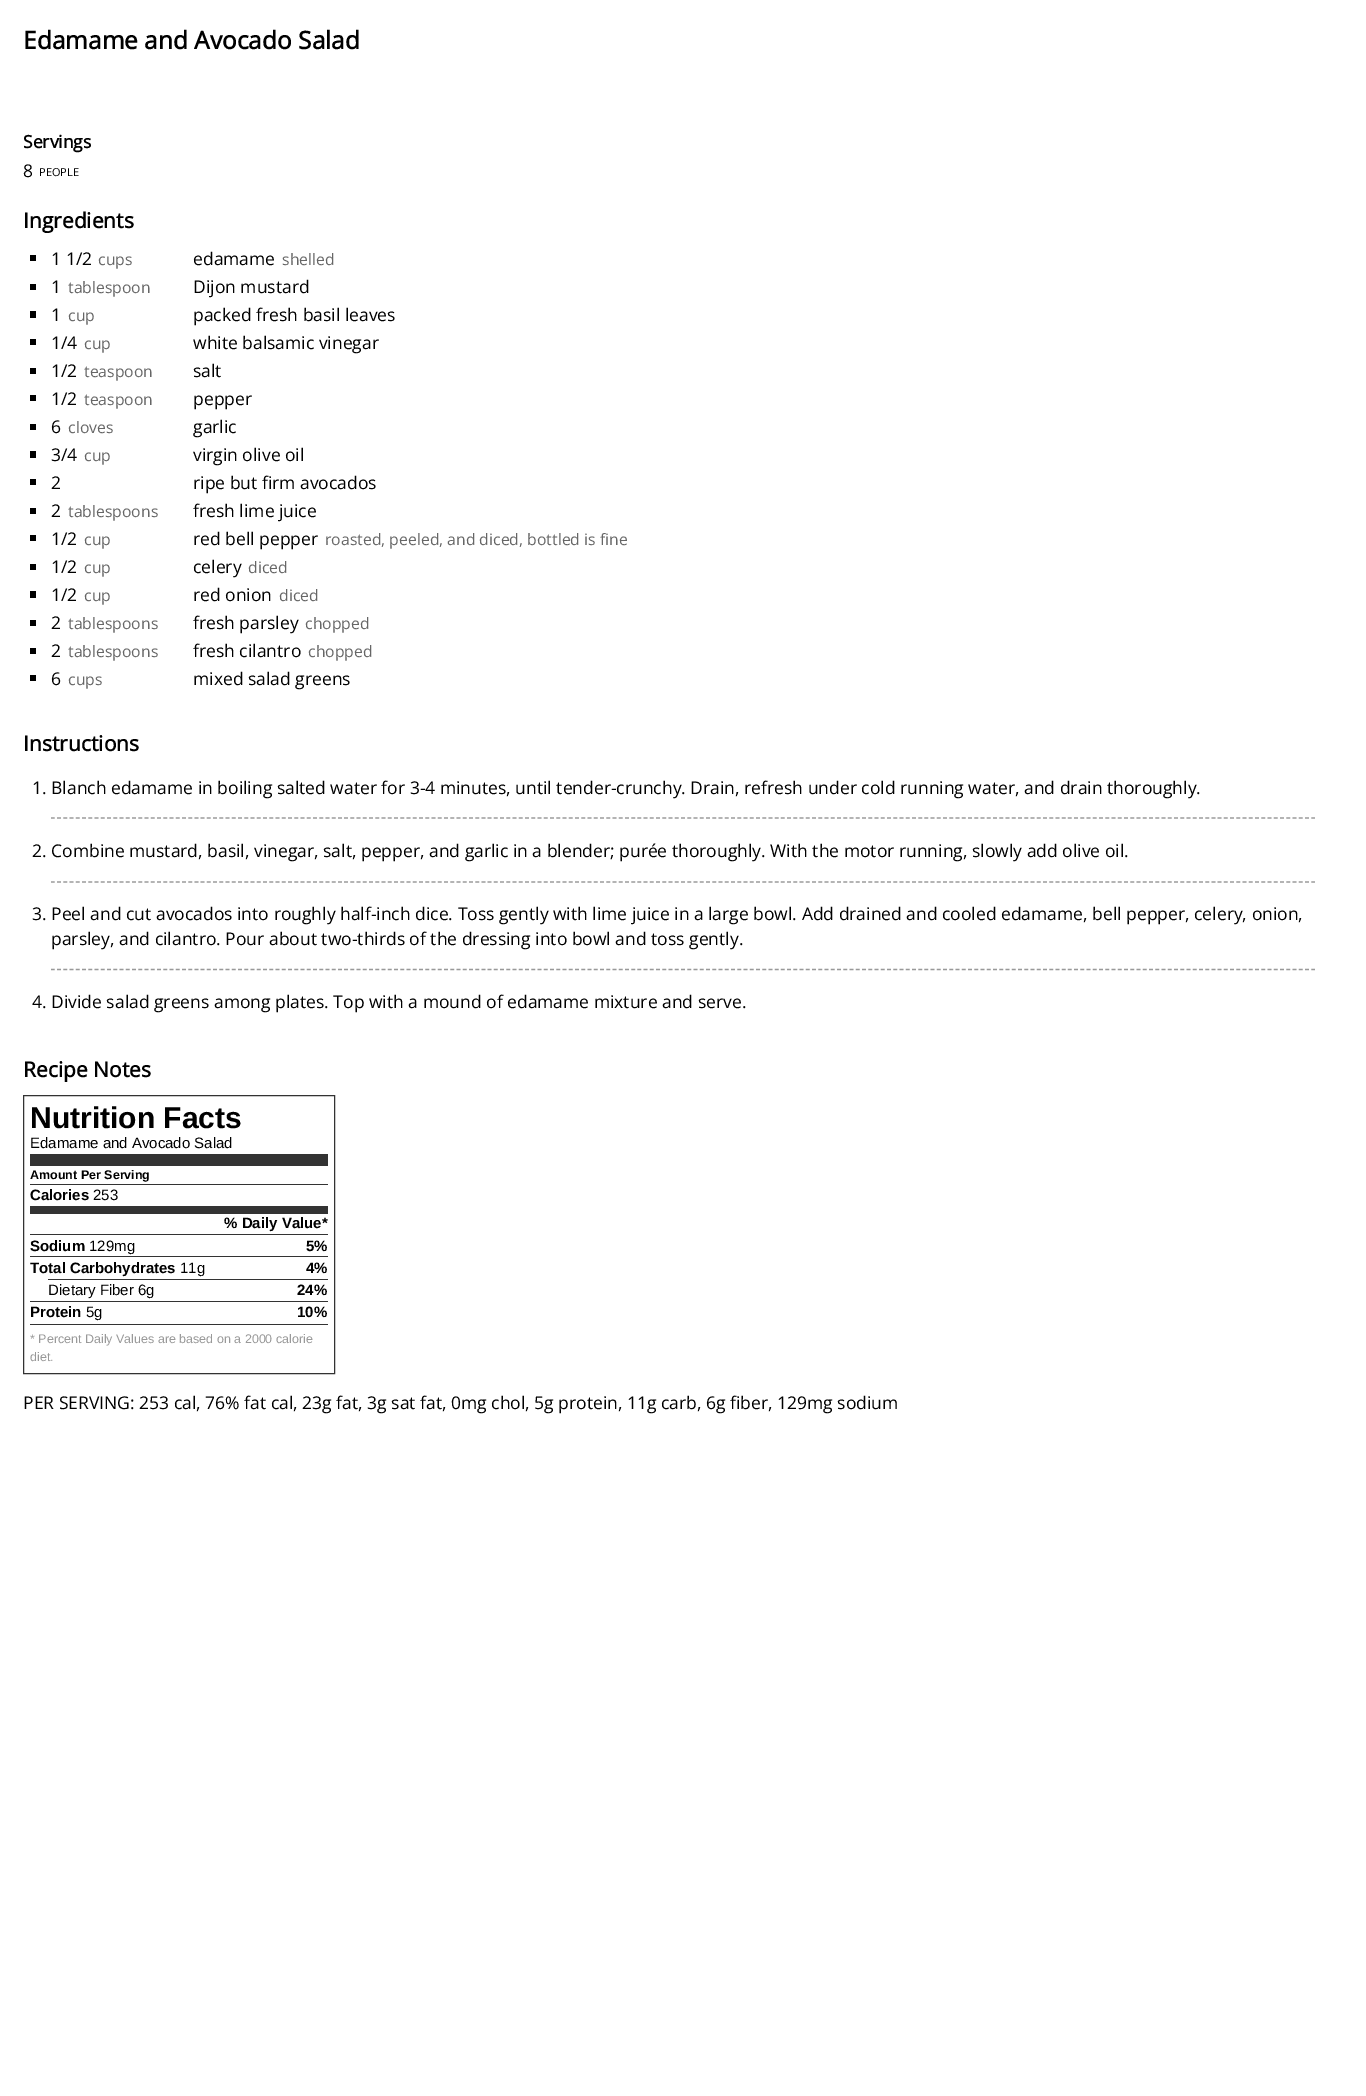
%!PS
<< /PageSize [1366 2096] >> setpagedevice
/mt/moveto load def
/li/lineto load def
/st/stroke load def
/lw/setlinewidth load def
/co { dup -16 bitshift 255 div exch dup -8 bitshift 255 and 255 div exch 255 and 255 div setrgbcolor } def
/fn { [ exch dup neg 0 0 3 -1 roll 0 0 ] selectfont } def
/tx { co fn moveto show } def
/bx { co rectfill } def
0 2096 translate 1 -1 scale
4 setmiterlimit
0 0 1366 2096 16#FFFFFF bx
30 255 6 6 16#000000 bx
30 284 6 6 16#000000 bx
30 311 6 7 16#000000 bx
30 339 6 6 16#000000 bx
30 368 6 6 16#000000 bx
30 395 6 6 16#000000 bx
30 424 6 6 16#000000 bx
30 451 6 7 16#000000 bx
30 479 6 6 16#000000 bx
30 508 6 6 16#000000 bx
30 535 6 6 16#000000 bx
30 564 6 6 16#000000 bx
30 591 6 7 16#000000 bx
30 620 6 6 16#000000 bx
30 648 6 6 16#000000 bx
30 675 6 6 16#000000 bx
16#999999 co
1.2 lw
[3.75 2.49] 0 setdash
51 818 mt 1315 818 li st
51 882 mt 1315 882 li st
51 969.5 mt 1315 969.5 li st
16#333333 co
1 lw
[] 0 setdash
23.5 1095.5 311 278 rectstroke
30 1154 298 12 16#333333 bx
30 1184 298 1 16#333333 bx
30 1206 298 8 16#333333 bx
30 1234 298 1 16#333333 bx
30 1256 298 1 16#333333 bx
48 1279 280 1 16#333333 bx
30 1301 298 1 16#333333 bx
30 1324 298 1 16#333333 bx
(Edamame and Avocado Salad) 23 49 /OpenSans-Bold 24.5 16#000000 tx
(Servings) 23 148 /OpenSans-Bold 17.5 16#000000 tx
(8) 23 177 /OpenSans-Regular 17.5 16#000000 tx
(PEOPLE) 39 176 /OpenSans-Regular 11 16#000000 tx
(Ingredients) 23 228 /OpenSans-Bold 21 16#000000 tx
(1 1/2) 51 265 /OpenSans-Regular 17.5 16#000000 tx
(cups) 98 265 /OpenSans-Regular 15.75 16#666666 tx
(edamame) 193 265 /OpenSans-Regular 17.5 16#000000 tx
(shelled) 282 265 /OpenSans-Regular 15.75 16#666666 tx
(1) 51 293 /OpenSans-Regular 17.5 16#000000 tx
(tablespoon) 68 293 /OpenSans-Regular 15.75 16#666666 tx
(Dijon mustard) 193 293 /OpenSans-Regular 17.5 16#000000 tx
(1) 51 321 /OpenSans-Regular 17.5 16#000000 tx
(cup) 68 321 /OpenSans-Regular 15.75 16#666666 tx
(packed fresh basil leaves) 193 321 /OpenSans-Regular 17.5 16#000000 tx
(1/4) 51 349 /OpenSans-Regular 17.5 16#000000 tx
(cup) 84 349 /OpenSans-Regular 15.75 16#666666 tx
(white balsamic vinegar) 193 349 /OpenSans-Regular 17.5 16#000000 tx
(1/2) 51 377 /OpenSans-Regular 17.5 16#000000 tx
(teaspoon) 84 377 /OpenSans-Regular 15.75 16#666666 tx
(salt) 193 377 /OpenSans-Regular 17.5 16#000000 tx
(1/2) 51 405 /OpenSans-Regular 17.5 16#000000 tx
(teaspoon) 84 405 /OpenSans-Regular 15.75 16#666666 tx
(pepper) 193 405 /OpenSans-Regular 17.5 16#000000 tx
(6) 51 433 /OpenSans-Regular 17.5 16#000000 tx
(cloves) 68 433 /OpenSans-Regular 15.75 16#666666 tx
(garlic) 193 433 /OpenSans-Regular 17.5 16#000000 tx
(3/4) 51 461 /OpenSans-Regular 17.5 16#000000 tx
(cup) 84 461 /OpenSans-Regular 15.75 16#666666 tx
(virgin olive oil) 193 461 /OpenSans-Regular 17.5 16#000000 tx
(2) 51 489 /OpenSans-Regular 17.5 16#000000 tx
(ripe but firm avocados) 193 489 /OpenSans-Regular 17.5 16#000000 tx
(2) 51 517 /OpenSans-Regular 17.5 16#000000 tx
(tablespoons) 68 517 /OpenSans-Regular 15.75 16#666666 tx
(fresh lime juice) 193 517 /OpenSans-Regular 17.5 16#000000 tx
(1/2) 51 545 /OpenSans-Regular 17.5 16#000000 tx
(cup) 84 545 /OpenSans-Regular 15.75 16#666666 tx
(red bell pepper) 193 545 /OpenSans-Regular 17.5 16#000000 tx
(roasted, peeled, and diced, bottled is fine) 325 545 /OpenSans-Regular 15.75 16#666666 tx
(1/2) 51 573 /OpenSans-Regular 17.5 16#000000 tx
(cup) 84 573 /OpenSans-Regular 15.75 16#666666 tx
(celery) 193 573 /OpenSans-Regular 17.5 16#000000 tx
(diced) 248 573 /OpenSans-Regular 15.75 16#666666 tx
(1/2) 51 601 /OpenSans-Regular 17.5 16#000000 tx
(cup) 84 601 /OpenSans-Regular 15.75 16#666666 tx
(red onion) 193 601 /OpenSans-Regular 17.5 16#000000 tx
(diced) 279 601 /OpenSans-Regular 15.75 16#666666 tx
(2) 51 629 /OpenSans-Regular 17.5 16#000000 tx
(tablespoons) 68 629 /OpenSans-Regular 15.75 16#666666 tx
(fresh parsley) 193 629 /OpenSans-Regular 17.5 16#000000 tx
(chopped) 305 629 /OpenSans-Regular 15.75 16#666666 tx
(2) 51 657 /OpenSans-Regular 17.5 16#000000 tx
(tablespoons) 68 657 /OpenSans-Regular 15.75 16#666666 tx
(fresh cilantro) 193 657 /OpenSans-Regular 17.5 16#000000 tx
(chopped) 308 657 /OpenSans-Regular 15.75 16#666666 tx
(6) 51 685 /OpenSans-Regular 17.5 16#000000 tx
(cups) 68 685 /OpenSans-Regular 15.75 16#666666 tx
(mixed salad greens) 193 685 /OpenSans-Regular 17.5 16#000000 tx
(Instructions) 23 751 /OpenSans-Bold 21 16#000000 tx
(1. Blanch edamame in boiling salted water for 3-4 minutes, until tender-crunchy. Drain, refresh under cold running water, and drain thoroughly.) 32 794 /OpenSans-Regular 17.5 16#000000 tx
(2. Combine mustard, basil, vinegar, salt, pepper, and garlic in a blender; purée thoroughly. With the motor running, slowly add olive oil.) 32 857 /OpenSans-Regular 17.5 16#000000 tx
(3. Peel and cut avocados into roughly half-inch dice. Toss gently with lime juice in a large bowl. Add drained and cooled edamame, bell pepper, celery, onion,) 32 920 /OpenSans-Regular 17.5 16#000000 tx
(parsley, and cilantro. Pour about two-thirds of the dressing into bowl and toss gently.) 51 945 /OpenSans-Regular 17.5 16#000000 tx
(4. Divide salad greens among plates. Top with a mound of edamame mixture and serve.) 32 1008 /OpenSans-Regular 17.5 16#000000 tx
(Recipe Notes) 23 1077 /OpenSans-Bold 21 16#000000 tx
(Nutrition Facts) 30 1128 /LiberationSans-Bold 30 16#000000 tx
(Edamame and Avocado Salad) 30 1148 /LiberationSans-Regular 15 16#000000 tx
(Amount Per Serving) 30 1179 /LiberationSans-Bold 12.5 16#000000 tx
(Calories) 30 1200 /LiberationSans-Bold 15 16#000000 tx
(253) 93 1200 /LiberationSans-Regular 15 16#000000 tx
(% Daily Value*) 224 1228 /LiberationSans-Bold 15 16#000000 tx
(Sodium) 30 1251 /LiberationSans-Bold 15 16#000000 tx
(129mg) 89 1251 /LiberationSans-Regular 15 16#000000 tx
(5%) 306 1251 /LiberationSans-Bold 15 16#000000 tx
(Total Carbohydrates) 30 1273 /LiberationSans-Bold 15 16#000000 tx
(11g) 180 1273 /LiberationSans-Regular 15 16#000000 tx
(4%) 306 1273 /LiberationSans-Bold 15 16#000000 tx
(Dietary Fiber 6g) 48 1295 /LiberationSans-Regular 15 16#000000 tx
(24%) 297 1295 /LiberationSans-Bold 15 16#000000 tx
(Protein) 30 1317 /LiberationSans-Bold 15 16#000000 tx
(5g) 86 1317 /LiberationSans-Regular 15 16#000000 tx
(10%) 297 1317 /LiberationSans-Bold 15 16#000000 tx
(* Percent Daily Values are based on a 2000 calorie) 30 1343 /LiberationSans-Regular 12.5 16#999999 tx
(diet.) 30 1361 /LiberationSans-Regular 12.5 16#999999 tx
(PER SERVING: 253 cal, 76% fat cal, 23g fat, 3g sat fat, 0mg chol, 5g protein, 11g carb, 6g fiber, 129mg sodium) 23 1409 /OpenSans-Regular 17.5 16#000000 tx
showpage
